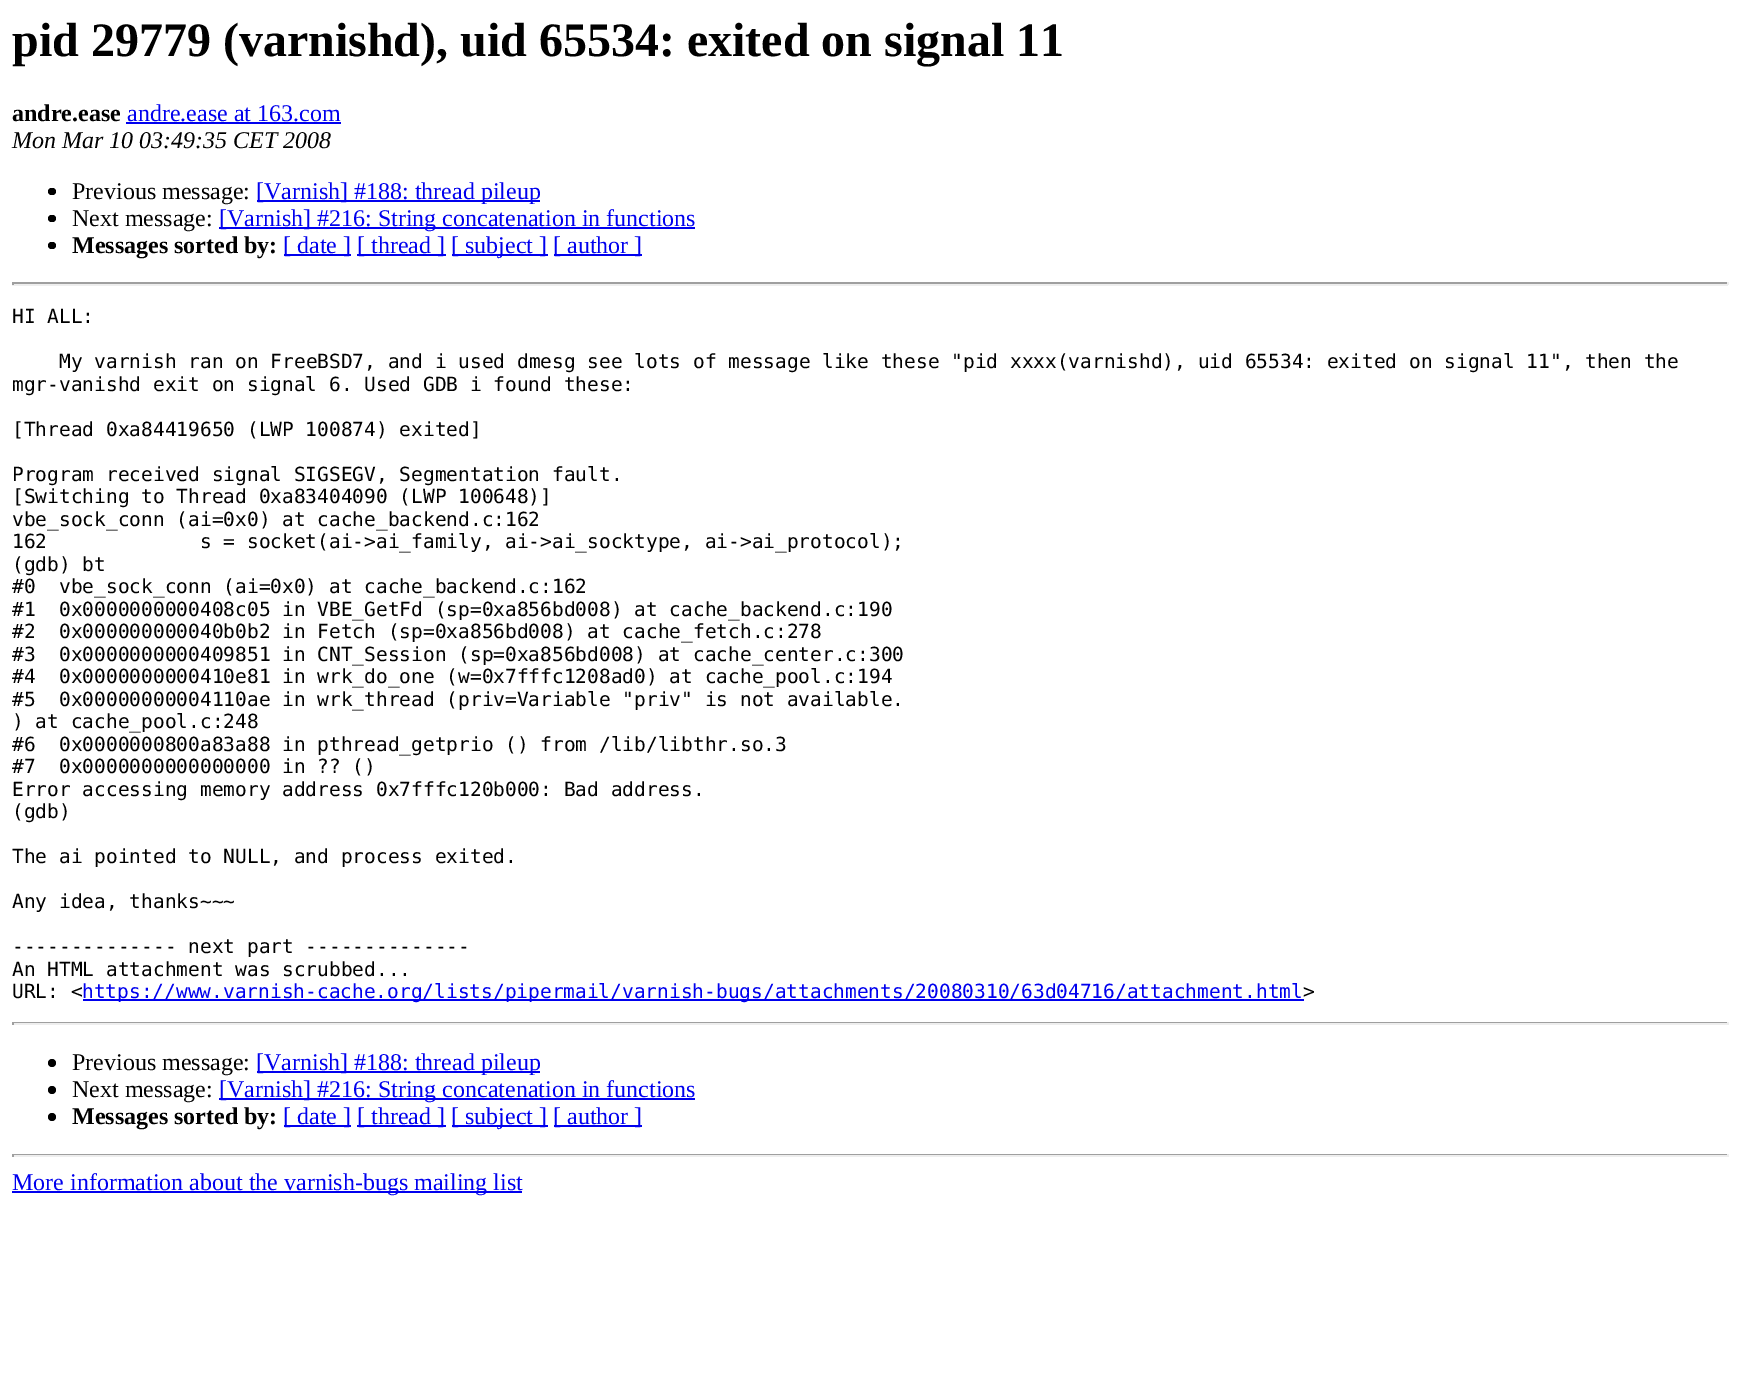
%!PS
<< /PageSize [1740 1385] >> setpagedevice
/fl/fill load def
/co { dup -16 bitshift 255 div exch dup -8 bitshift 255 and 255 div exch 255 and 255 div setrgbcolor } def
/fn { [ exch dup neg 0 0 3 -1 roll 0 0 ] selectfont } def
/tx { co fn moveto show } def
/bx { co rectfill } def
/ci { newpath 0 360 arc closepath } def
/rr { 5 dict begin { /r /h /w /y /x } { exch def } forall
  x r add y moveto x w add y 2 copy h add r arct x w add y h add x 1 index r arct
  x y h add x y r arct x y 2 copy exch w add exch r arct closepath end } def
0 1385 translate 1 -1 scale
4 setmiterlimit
0 0 1740 1385 16#FFFFFF bx
126 122 215 2 16#0000EE bx
16#000000 co
48 188 8 7 3.5 rr fl
257 200 283 2 16#0000EE bx
16#000000 co
48 215 8 7 3.5 rr fl
219 227 476 2 16#0000EE bx
16#000000 co
48 242 8 7 3.5 rr fl
284 254 67 2 16#0000EE bx
357 254 89 2 16#0000EE bx
452 254 96 2 16#0000EE bx
554 254 88 2 16#0000EE bx
12 282 1716 2 16#9F9F9F bx
1727 282 2 3 16#EEEEEE bx
12 284 1716 2 16#EEEEEE bx
12 282 2 3 16#9F9F9F bx
83 999 1221 2 16#0000EE bx
12 1022 1716 1 16#9F9F9F bx
1727 1022 2 3 16#EEEEEE bx
12 1023 1716 2 16#EEEEEE bx
12 1022 2 3 16#9F9F9F bx
16#000000 co
52 1063 4 ci fl
257 1071 283 2 16#0000EE bx
16#000000 co
52 1090 4 ci fl
219 1098 476 2 16#0000EE bx
16#000000 co
52 1117 4 ci fl
284 1125 67 2 16#0000EE bx
357 1125 89 2 16#0000EE bx
452 1125 96 2 16#0000EE bx
554 1125 88 2 16#0000EE bx
12 1154 1716 1 16#9F9F9F bx
1727 1154 2 3 16#EEEEEE bx
12 1155 1716 2 16#EEEEEE bx
12 1154 2 3 16#9F9F9F bx
12 1191 510 2 16#0000EE bx
(pid 29779 \(varnishd\), uid 65534: exited on signal 11) 12 56 /LiberationSerif-Bold 48 16#000000 tx
(andre.ease) 12 121 /LiberationSerif-Bold 24 16#000000 tx
(andre.ease at 163.com) 127 121 /LiberationSerif-Regular 24 16#0000EE tx
(Mon Mar 10 03:49:35 CET 2008) 12 148 /LiberationSerif-Italic 24 16#000000 tx
(Previous message:) 72 199 /LiberationSerif-Regular 24 16#000000 tx
([Varnish] #188: thread pileup) 256 199 /LiberationSerif-Regular 24 16#0000EE tx
(Next message:) 72 226 /LiberationSerif-Regular 24 16#000000 tx
([Varnish] #216: String concatenation in functions) 219 226 /LiberationSerif-Regular 24 16#0000EE tx
(Messages sorted by:) 72 253 /LiberationSerif-Bold 24 16#000000 tx
([ date ]) 283 253 /LiberationSerif-Regular 24 16#0000EE tx
([ thread ]) 357 253 /LiberationSerif-Regular 24 16#0000EE tx
([ subject ]) 451 253 /LiberationSerif-Regular 24 16#0000EE tx
([ author ]) 553 253 /LiberationSerif-Regular 24 16#0000EE tx
(HI ALL:) 12 323 /DejaVuSansMono-Regular 19.5 16#000000 tx
(My varnish ran on FreeBSD7, and i used dmesg see lots of message like these "pid xxxx\(varnishd\), uid 65534: exited on signal 11", then the) 59 368 /DejaVuSansMono-Regular 19.5 16#000000 tx
(mgr-vanishd exit on signal 6. Used GDB i found these:) 12 391 /DejaVuSansMono-Regular 19.5 16#000000 tx
([Thread 0xa84419650 \(LWP 100874\) exited]) 12 436 /DejaVuSansMono-Regular 19.5 16#000000 tx
(Program received signal SIGSEGV, Segmentation fault.) 12 481 /DejaVuSansMono-Regular 19.5 16#000000 tx
([Switching to Thread 0xa83404090 \(LWP 100648\)]) 12 503 /DejaVuSansMono-Regular 19.5 16#000000 tx
(vbe_sock_conn \(ai=0x0\) at cache_backend.c:162) 12 526 /DejaVuSansMono-Regular 19.5 16#000000 tx
(162             s = socket\(ai->ai_family, ai->ai_socktype, ai->ai_protocol\);) 12 548 /DejaVuSansMono-Regular 19.5 16#000000 tx
(\(gdb\) bt) 12 571 /DejaVuSansMono-Regular 19.5 16#000000 tx
(#0  vbe_sock_conn \(ai=0x0\) at cache_backend.c:162) 12 593 /DejaVuSansMono-Regular 19.5 16#000000 tx
(#1  0x0000000000408c05 in VBE_GetFd \(sp=0xa856bd008\) at cache_backend.c:190) 12 616 /DejaVuSansMono-Regular 19.5 16#000000 tx
(#2  0x000000000040b0b2 in Fetch \(sp=0xa856bd008\) at cache_fetch.c:278) 12 638 /DejaVuSansMono-Regular 19.5 16#000000 tx
(#3  0x0000000000409851 in CNT_Session \(sp=0xa856bd008\) at cache_center.c:300) 12 661 /DejaVuSansMono-Regular 19.5 16#000000 tx
(#4  0x0000000000410e81 in wrk_do_one \(w=0x7fffc1208ad0\) at cache_pool.c:194) 12 683 /DejaVuSansMono-Regular 19.5 16#000000 tx
(#5  0x00000000004110ae in wrk_thread \(priv=Variable "priv" is not available.) 12 706 /DejaVuSansMono-Regular 19.5 16#000000 tx
(\) at cache_pool.c:248) 12 728 /DejaVuSansMono-Regular 19.5 16#000000 tx
(#6  0x0000000800a83a88 in pthread_getprio \(\) from /lib/libthr.so.3) 12 751 /DejaVuSansMono-Regular 19.5 16#000000 tx
(#7  0x0000000000000000 in ?? \(\)) 12 773 /DejaVuSansMono-Regular 19.5 16#000000 tx
(Error accessing memory address 0x7fffc120b000: Bad address.) 12 796 /DejaVuSansMono-Regular 19.5 16#000000 tx
(\(gdb\)) 12 818 /DejaVuSansMono-Regular 19.5 16#000000 tx
(The ai pointed to NULL, and process exited.) 12 863 /DejaVuSansMono-Regular 19.5 16#000000 tx
(Any idea, thanks~~~) 12 908 /DejaVuSansMono-Regular 19.5 16#000000 tx
(-------------- next part --------------) 12 953 /DejaVuSansMono-Regular 19.5 16#000000 tx
(An HTML attachment was scrubbed...) 12 976 /DejaVuSansMono-Regular 19.5 16#000000 tx
(URL: <) 12 998 /DejaVuSansMono-Regular 19.5 16#000000 tx
(https://www.varnish-cache.org/lists/pipermail/varnish-bugs/attachments/20080310/63d04716/attachment.html) 82 998 /DejaVuSansMono-Regular 19.5 16#0000EE tx
(>) 1303 998 /DejaVuSansMono-Regular 19.5 16#000000 tx
(Previous message:) 72 1070 /LiberationSerif-Regular 24 16#000000 tx
([Varnish] #188: thread pileup) 256 1070 /LiberationSerif-Regular 24 16#0000EE tx
(Next message:) 72 1097 /LiberationSerif-Regular 24 16#000000 tx
([Varnish] #216: String concatenation in functions) 219 1097 /LiberationSerif-Regular 24 16#0000EE tx
(Messages sorted by:) 72 1124 /LiberationSerif-Bold 24 16#000000 tx
([ date ]) 283 1124 /LiberationSerif-Regular 24 16#0000EE tx
([ thread ]) 357 1124 /LiberationSerif-Regular 24 16#0000EE tx
([ subject ]) 451 1124 /LiberationSerif-Regular 24 16#0000EE tx
([ author ]) 553 1124 /LiberationSerif-Regular 24 16#0000EE tx
(More information about the varnish-bugs mailing list) 12 1190 /LiberationSerif-Regular 24 16#0000EE tx
showpage
